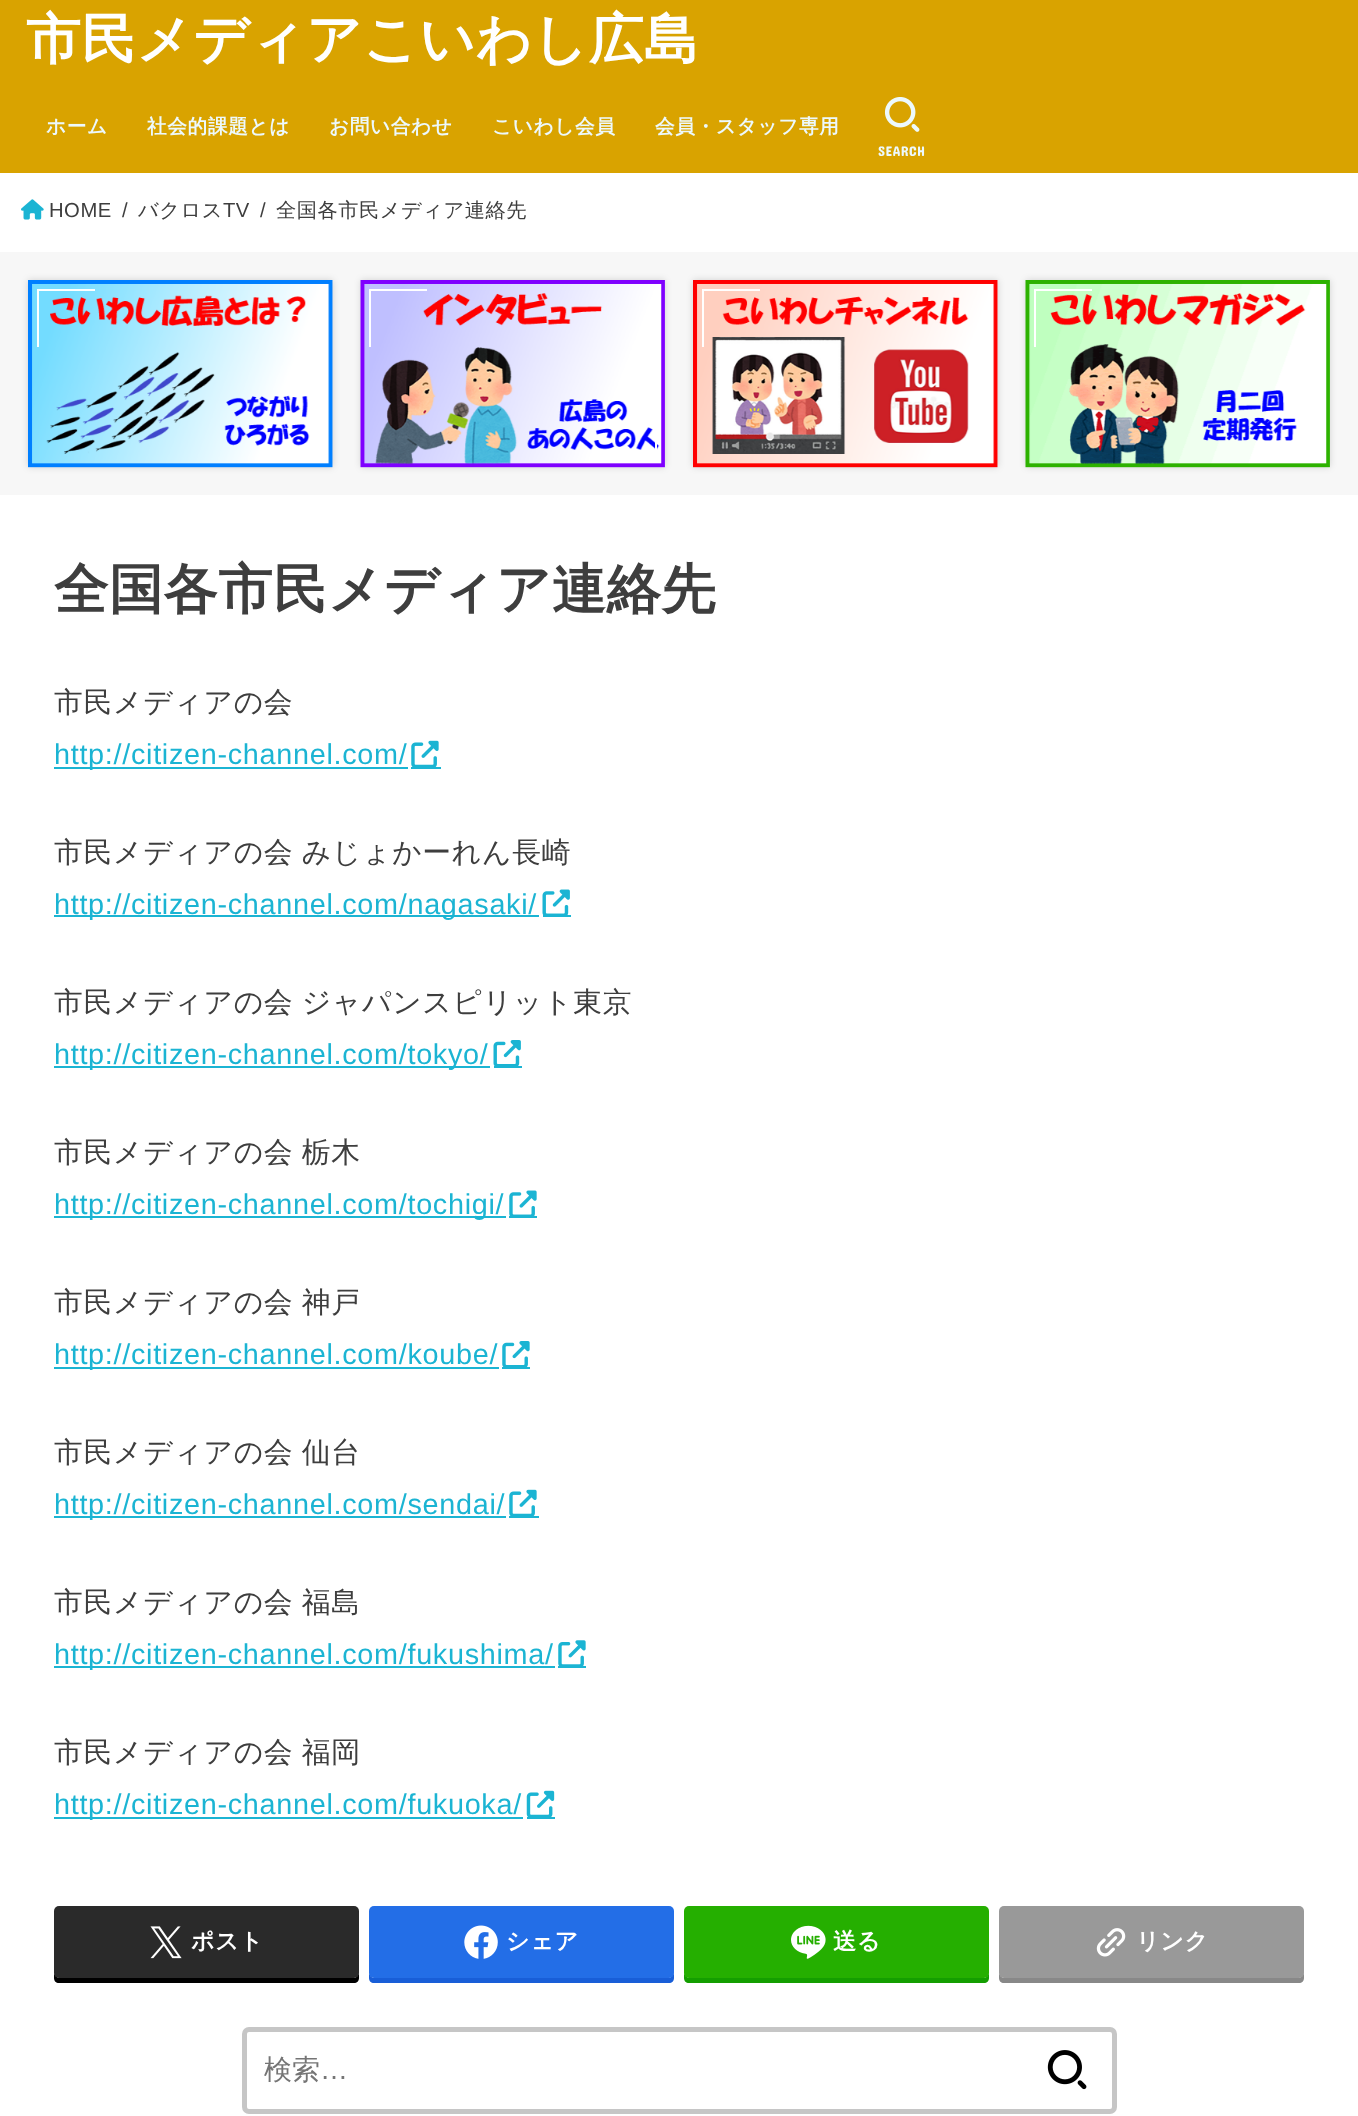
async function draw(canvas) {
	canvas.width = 1358;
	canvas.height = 2116;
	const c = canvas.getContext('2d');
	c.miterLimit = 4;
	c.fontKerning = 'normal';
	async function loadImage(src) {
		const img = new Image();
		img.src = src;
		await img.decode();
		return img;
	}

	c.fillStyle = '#f7f7f7';
	c.fillRect(0, 0, 1358, 2116);
	c.fillStyle = '#d9a300';
	c.fillRect(0, 0, 1358, 173);
	c.letterSpacing = '0.5px';
	c.font = 'bold 54.75px WenQuanYi Zen Hei';
	c.fillStyle = '#fff';
	c.fillText('市民メディアこいわし広島', 26, 58);
	c.letterSpacing = '0.7px';
	c.font = 'bold 19.6px WenQuanYi Zen Hei';
	c.fillStyle = '#edf9fc';
	for (const [text, x, y] of [
		['ホーム', 46, 133],
		['社会的課題とは', 147, 133],
		['お問い合わせ', 329, 133],
		['こいわし会員', 492, 133],
		['会員・スタッフ専用', 655, 133],
	]) {
		c.fillText(text, x, y);
	}
	c.drawImage(await loadImage('img1.png'), 884, 97, 36, 35);
	c.letterSpacing = '0.5px';
	c.font = '14px Concert One';
	c.fillText('SEARCH', 878, 156);
	c.fillStyle = '#fff';
	c.fillRect(0, 173, 1358, 79);
	c.drawImage(await loadImage('img2.png'), 21, 199, 23, 21);
	c.font = '20.25px Liberation Sans';
	c.fillStyle = '#3e3e3e';
	c.fillText('HOME', 49, 217);
	c.fillText('/', 122, 217);
	c.font = '500 20.25px WenQuanYi Zen Hei';
	c.fillText('バクロス', 138, 217);
	c.font = '20.25px Liberation Sans';
	c.fillText('TV', 223, 217);
	c.fillText('/', 260, 217);
	c.font = '500 20.25px WenQuanYi Zen Hei';
	c.fillText('全国各市民メディア連絡先', 276, 217);
	c.fillStyle = '#00000026';
	c.filter = 'blur(3.5px)';
	c.beginPath();
	c.rect(28, 280, 305, 187);
	c.fill();
	c.filter = 'none';
	c.drawImage(await loadImage('img3.png'), 28, 280, 305, 188);
	c.fillStyle = '#fff';
	c.fillRect(37, 289, 58, 2);
	c.fillRect(37, 289, 2, 58);
	c.fillStyle = '#00000026';
	c.filter = 'blur(3.5px)';
	c.beginPath();
	c.rect(361, 280, 304, 187);
	c.fill();
	c.filter = 'none';
	c.drawImage(await loadImage('img4.png'), 360, 280, 305, 188);
	for (const [x, y, w, h, color] of [
		[369, 289, 58, 2, '#fff'],
		[369, 289, 2, 58, '#fff'],
		[655, 441, 2, 9, '#fff'],
	]) {
		c.fillStyle = color;
		c.fillRect(x, y, w, h);
	}
	c.fillStyle = '#00000026';
	c.filter = 'blur(3.5px)';
	c.beginPath();
	c.rect(693, 280, 305, 187);
	c.fill();
	c.filter = 'none';
	c.drawImage(await loadImage('img5.png'), 693, 280, 305, 188);
	c.fillStyle = '#fff';
	c.fillRect(702, 289, 58, 2);
	c.fillRect(702, 289, 2, 58);
	c.fillStyle = '#00000026';
	c.filter = 'blur(3.5px)';
	c.beginPath();
	c.rect(1026, 280, 304, 187);
	c.fill();
	c.filter = 'none';
	c.drawImage(await loadImage('img6.png'), 1025, 280, 305, 188);
	for (const [x, y, w, h, color] of [
		[1034, 289, 58, 2, '#fff'],
		[1034, 289, 2, 58, '#fff'],
		[0, 495, 1358, 1621, '#fff'],
	]) {
		c.fillStyle = color;
		c.fillRect(x, y, w, h);
	}
	c.font = 'bold 54.25px WenQuanYi Zen Hei';
	c.fillStyle = '#3e3e3e';
	c.fillText('全国各市民メディア連絡先', 54, 608);
	c.letterSpacing = '0.7px';
	c.font = '500 28.8px WenQuanYi Zen Hei';
	c.fillText('市民メディアの会', 54, 712);
	c.fillStyle = '#1bb4d3';
	c.fillRect(54, 767, 354, 2);
	c.font = '28.8px Liberation Sans';
	c.fillText('http://citizen-channel.com/', 54, 764);
	c.fillRect(411, 767, 30, 2);
	c.drawImage(await loadImage('img7.png'), 411, 740, 28, 27);
	c.wordSpacing = '-1px';
	c.font = '500 28.8px WenQuanYi Zen Hei';
	c.fillStyle = '#3e3e3e';
	c.fillText('市民メディアの会 みじょかーれん長崎', 54, 862);
	c.fillStyle = '#1bb4d3';
	c.fillRect(54, 915, 485, 2);
	c.wordSpacing = '0px';
	c.font = '28.8px Liberation Sans';
	c.fillText('http://citizen-channel.com/nagasaki/', 54, 914);
	c.fillRect(543, 915, 28, 2);
	c.drawImage(await loadImage('img8.png'), 542, 889, 28, 26);
	c.wordSpacing = '-1px';
	c.font = '500 28.8px WenQuanYi Zen Hei';
	c.fillStyle = '#3e3e3e';
	c.fillText('市民メディアの会 ジャパンスピリット東京', 54, 1012);
	c.fillStyle = '#1bb4d3';
	c.fillRect(54, 1066, 436, 2);
	c.wordSpacing = '0px';
	c.font = '28.8px Liberation Sans';
	c.fillText('http://citizen-channel.com/tokyo/', 54, 1064);
	c.fillRect(494, 1066, 28, 2);
	c.drawImage(await loadImage('img9.png'), 493, 1040, 28, 26);
	c.wordSpacing = '-1px';
	c.font = '500 28.8px WenQuanYi Zen Hei';
	c.fillStyle = '#3e3e3e';
	c.fillText('市民メディアの会 栃木', 54, 1162);
	c.fillStyle = '#1bb4d3';
	c.fillRect(54, 1216, 452, 2);
	c.wordSpacing = '0px';
	c.font = '28.8px Liberation Sans';
	c.fillText('http://citizen-channel.com/tochigi/', 54, 1214);
	c.fillRect(509, 1216, 28, 2);
	c.drawImage(await loadImage('img10.png'), 509, 1190, 28, 26);
	c.wordSpacing = '-1px';
	c.font = '500 28.8px WenQuanYi Zen Hei';
	c.fillStyle = '#3e3e3e';
	c.fillText('市民メディアの会 神戸', 54, 1312);
	c.fillStyle = '#1bb4d3';
	c.fillRect(54, 1367, 445, 2);
	c.wordSpacing = '0px';
	c.font = '28.8px Liberation Sans';
	c.fillText('http://citizen-channel.com/koube/', 54, 1364);
	c.fillRect(502, 1367, 28, 2);
	c.drawImage(await loadImage('img11.png'), 502, 1341, 28, 26);
	c.wordSpacing = '-1px';
	c.font = '500 28.8px WenQuanYi Zen Hei';
	c.fillStyle = '#3e3e3e';
	c.fillText('市民メディアの会 仙台', 54, 1462);
	c.fillStyle = '#1bb4d3';
	c.fillRect(54, 1516, 452, 2);
	c.wordSpacing = '0px';
	c.font = '28.8px Liberation Sans';
	c.fillText('http://citizen-channel.com/sendai/', 54, 1514);
	c.fillRect(509, 1516, 30, 2);
	c.drawImage(await loadImage('img7.png'), 509, 1489, 28, 27);
	c.wordSpacing = '-1px';
	c.font = '500 28.8px WenQuanYi Zen Hei';
	c.fillStyle = '#3e3e3e';
	c.fillText('市民メディアの会 福島', 54, 1612);
	c.fillStyle = '#1bb4d3';
	c.fillRect(54, 1666, 501, 2);
	c.wordSpacing = '0px';
	c.font = '28.8px Liberation Sans';
	c.fillText('http://citizen-channel.com/fukushima/', 54, 1664);
	c.fillRect(558, 1666, 28, 2);
	c.drawImage(await loadImage('img12.png'), 558, 1640, 28, 26);
	c.wordSpacing = '-1px';
	c.font = '500 28.8px WenQuanYi Zen Hei';
	c.fillStyle = '#3e3e3e';
	c.fillText('市民メディアの会 福岡', 54, 1762);
	c.fillStyle = '#1bb4d3';
	c.fillRect(54, 1817, 469, 2);
	c.wordSpacing = '0px';
	c.font = '28.8px Liberation Sans';
	c.fillText('http://citizen-channel.com/fukuoka/', 54, 1814);
	c.fillRect(527, 1817, 28, 2);
	c.drawImage(await loadImage('img13.png'), 526, 1790, 29, 27);
	c.fillStyle = '#000';
	c.beginPath();
	c.moveTo(54, 1914);
	c.lineTo(54, 1978);
	c.bezierCurveTo(54, 1981, 56, 1983, 59, 1983);
	c.lineTo(354, 1983);
	c.bezierCurveTo(357, 1983, 359, 1981, 359, 1978);
	c.lineTo(359, 1914);
	c.lineTo(359, 1972);
	c.bezierCurveTo(359, 1975, 356, 1978, 354, 1978);
	c.lineTo(60, 1978);
	c.bezierCurveTo(57, 1978, 54, 1975, 54, 1972);
	c.closePath();
	c.fill();
	c.fillStyle = '#2a2a2a';
	c.beginPath();
	c.roundRect(54, 1906, 305, 72, 5);
	c.fill();
	c.drawImage(await loadImage('img14.png'), 150, 1926, 32, 33);
	c.font = 'bold 23px WenQuanYi Zen Hei';
	c.fillStyle = '#fff';
	c.fillText('ポスト', 191, 1949);
	c.fillStyle = '#185ed8';
	c.beginPath();
	c.moveTo(369, 1914);
	c.lineTo(369, 1978);
	c.bezierCurveTo(369, 1981, 371, 1983, 374, 1983);
	c.lineTo(669, 1983);
	c.bezierCurveTo(672, 1983, 674, 1981, 674, 1978);
	c.lineTo(674, 1914);
	c.lineTo(674, 1972);
	c.bezierCurveTo(674, 1975, 671, 1978, 668, 1978);
	c.lineTo(374, 1978);
	c.bezierCurveTo(372, 1978, 369, 1975, 369, 1972);
	c.closePath();
	c.fill();
	c.fillStyle = '#236ee7';
	c.beginPath();
	c.roundRect(369, 1906, 305, 72, 5);
	c.fill();
	c.drawImage(await loadImage('img15.png'), 464, 1925, 34, 34);
	c.fillStyle = '#fff';
	c.fillText('シェア', 506, 1949);
	c.fillStyle = '#149e00';
	c.beginPath();
	c.moveTo(684, 1914);
	c.lineTo(684, 1978);
	c.bezierCurveTo(684, 1981, 686, 1983, 689, 1983);
	c.lineTo(984, 1983);
	c.bezierCurveTo(987, 1983, 989, 1981, 989, 1978);
	c.lineTo(989, 1914);
	c.lineTo(989, 1972);
	c.bezierCurveTo(989, 1975, 986, 1978, 984, 1978);
	c.lineTo(690, 1978);
	c.bezierCurveTo(687, 1978, 684, 1975, 684, 1972);
	c.closePath();
	c.fill();
	c.fillStyle = '#25af00';
	c.beginPath();
	c.roundRect(684, 1906, 305, 72, 5);
	c.fill();
	c.drawImage(await loadImage('img16.png'), 791, 1925, 35, 34);
	c.fillStyle = '#fff';
	c.fillText('送る', 833, 1949);
	c.fillStyle = '#888';
	c.beginPath();
	c.moveTo(999, 1914);
	c.lineTo(999, 1978);
	c.bezierCurveTo(999, 1981, 1001, 1983, 1004, 1983);
	c.lineTo(1299, 1983);
	c.bezierCurveTo(1302, 1983, 1304, 1981, 1304, 1978);
	c.lineTo(1304, 1914);
	c.lineTo(1304, 1972);
	c.bezierCurveTo(1304, 1975, 1301, 1978, 1298, 1978);
	c.lineTo(1004, 1978);
	c.bezierCurveTo(1002, 1978, 999, 1975, 999, 1972);
	c.closePath();
	c.fill();
	c.fillStyle = '#999';
	c.beginPath();
	c.roundRect(999, 1906, 305, 72, 5);
	c.fill();
	c.drawImage(await loadImage('img17.png'), 1096, 1928, 30, 29);
	c.fillStyle = '#fff';
	c.fillText('リンク', 1136, 1949);
	c.beginPath();
	c.roundRect(244.5, 2029.5, 870, 82, 4.5);
	c.strokeStyle = '#c6c6c6';
	c.lineWidth = 5;
	c.stroke();
	c.letterSpacing = '0px';
	c.font = '500 28px WenQuanYi Zen Hei';
	c.fillStyle = '#757575';
	c.fillText('検索', 264, 2079);
	c.font = '28px Liberation Sans';
	c.fillText('…', 320, 2079);
	c.drawImage(await loadImage('img18.png'), 1047, 2050, 40, 40);
}

draw(document.querySelector('canvas'));
